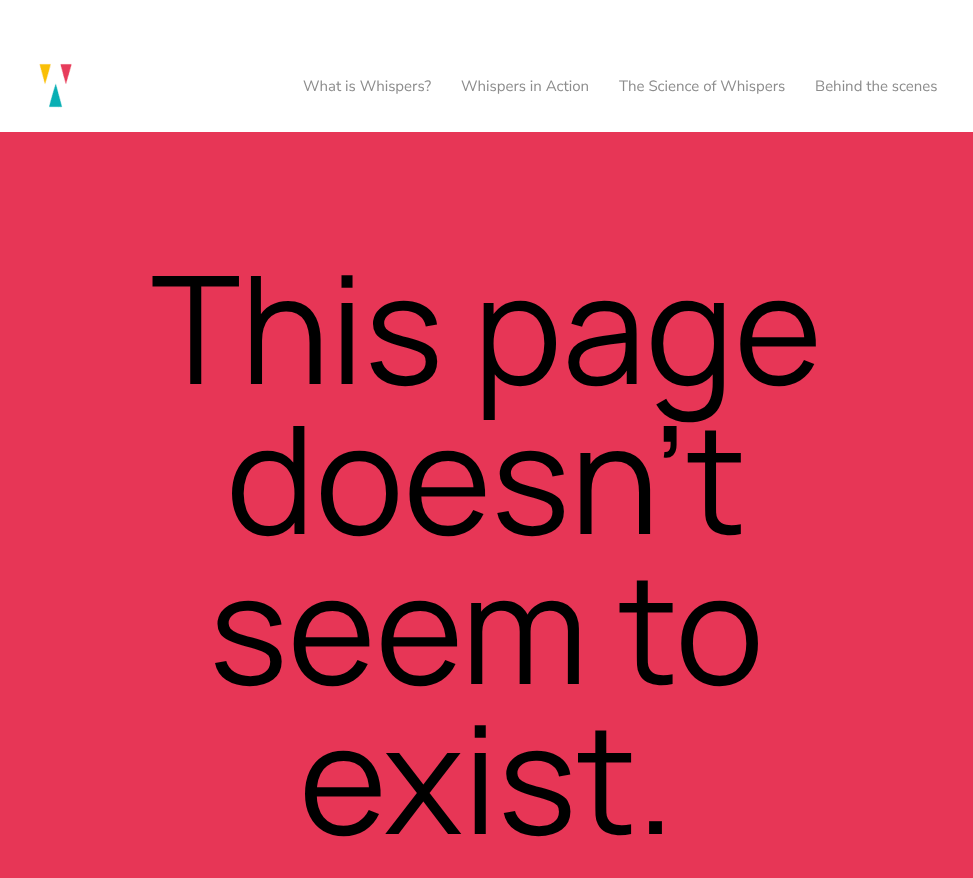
async function draw(canvas) {
	canvas.width = 973;
	canvas.height = 878;
	const c = canvas.getContext('2d');
	c.miterLimit = 4;
	c.fontKerning = 'normal';
	async function loadImage(src) {
		const img = new Image();
		img.src = src;
		await img.decode();
		return img;
	}

	c.fillStyle = '#fff';
	c.fillRect(0, 0, 973, 878);
	c.drawImage(await loadImage('img1.png'), 39, 63, 33, 45);
	c.font = '200 15px Nunito Sans';
	c.fillStyle = '#8c8c8c';
	for (const [text, x, y] of [
		['What is Whispers?', 303, 91],
		['Whispers in Action', 461, 91],
		['The Science of Whispers', 619, 91],
		['Behind the scenes', 815, 91],
	]) {
		c.fillText(text, x, y);
	}
	c.fillStyle = '#e73656';
	c.fillRect(0, 132, 973, 746);
	c.font = '150px Manrope';
	c.fillStyle = '#000';
	for (const [text, x, y] of [
		['This page', 151, 384],
		['doesn\'t', 226, 534],
		['seem to', 209, 684],
		['exist.', 299, 834],
	]) {
		c.fillText(text, x, y);
	}
}

draw(document.querySelector('canvas'));
